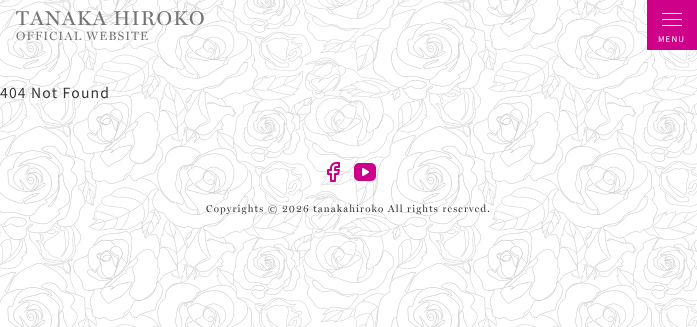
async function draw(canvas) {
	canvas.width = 697;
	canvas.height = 327;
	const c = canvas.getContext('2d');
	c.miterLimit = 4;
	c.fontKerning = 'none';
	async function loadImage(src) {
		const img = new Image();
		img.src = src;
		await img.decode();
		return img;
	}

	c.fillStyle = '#fff';
	c.fillRect(0, 0, 697, 327);
	c.drawImage(await loadImage('img1.png'), 0, 0, 697, 327);
	c.letterSpacing = '1.12px';
	c.font = '20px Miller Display';
	c.fillStyle = '#747474';
	c.fillText('TANAKA HIROKO', 16, 25);
	c.font = '12px Miller Display';
	c.fillText('OFFICIAL WEBSITE', 16, 40);
	for (const [x, y, w, h, color] of [
		[647, 0, 50, 50, '#ce0089'],
		[662, 19, 20, 1, '#fff'],
		[662, 13, 20, 1, '#fff'],
		[662, 25, 20, 1, '#fff'],
	]) {
		c.fillStyle = color;
		c.fillRect(x, y, w, h);
	}
	c.font = '8px Noto Sans JP';
	c.fillText('MENU', 658, 42);
	c.font = '14px Noto Sans JP';
	c.fillStyle = '#363636';
	c.fillText('404 Not Found', 0, 98);
	c.drawImage(await loadImage('img2.png'), 327, 162, 13, 20);
	c.drawImage(await loadImage('img3.png'), 354, 163, 22, 18);
	c.font = '10px Miller Display';
	c.fillText('Copyrights © 2026 tanakahiroko All rights reserved.', 206, 212);
}

draw(document.querySelector('canvas'));
